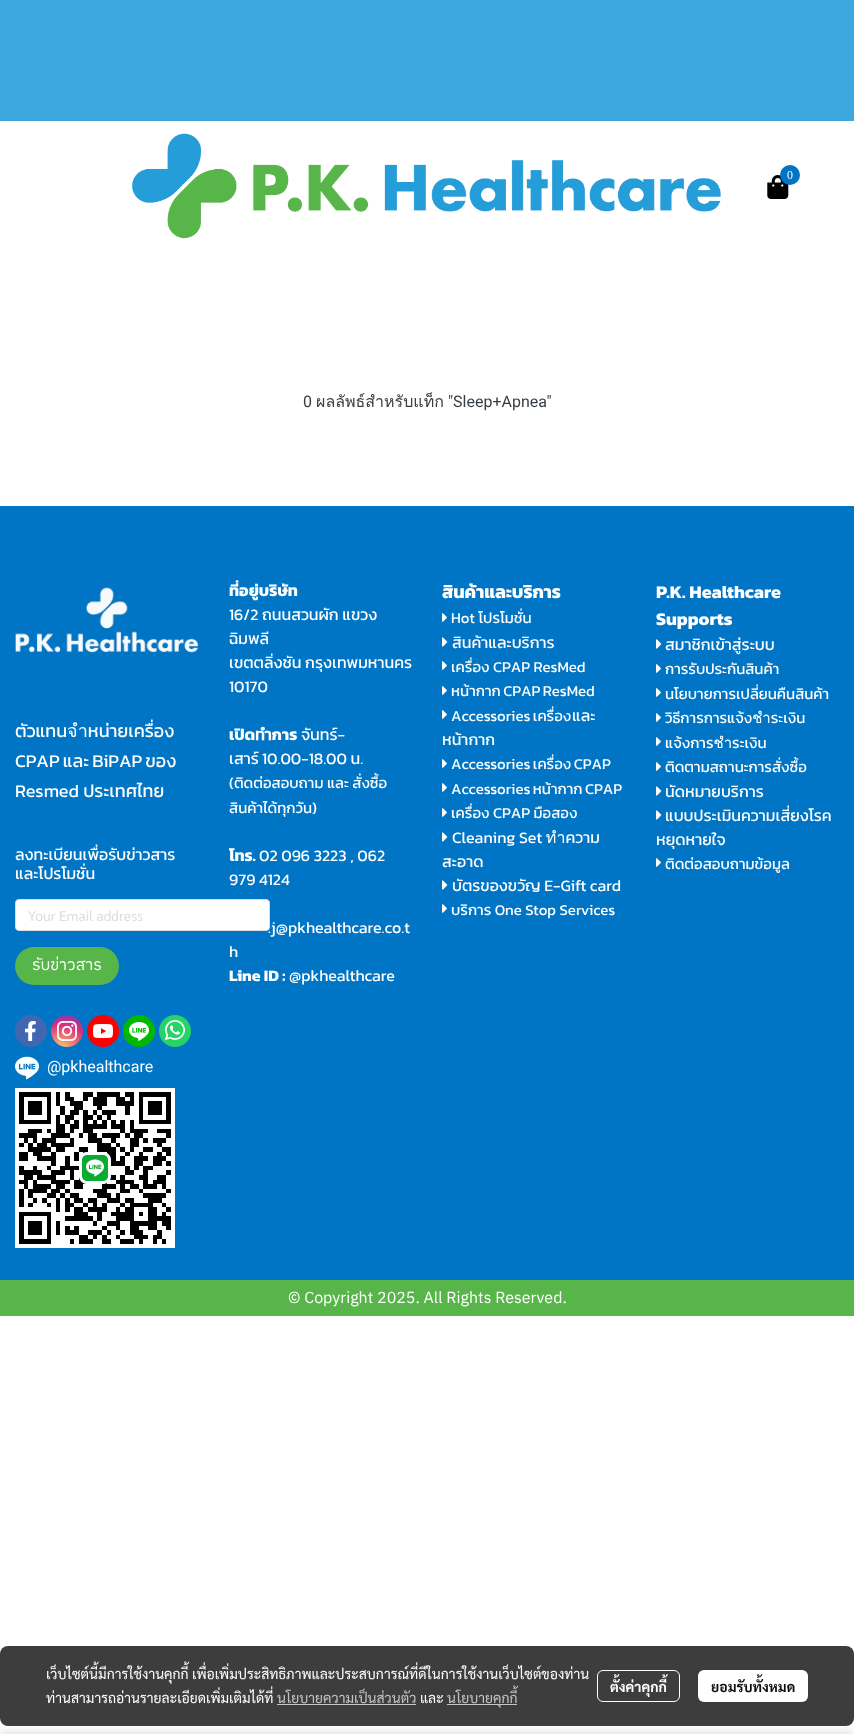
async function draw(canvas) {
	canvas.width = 854;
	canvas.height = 1734;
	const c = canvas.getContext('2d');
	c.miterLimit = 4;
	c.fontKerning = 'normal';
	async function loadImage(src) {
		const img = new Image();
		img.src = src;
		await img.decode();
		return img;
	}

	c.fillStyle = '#fff';
	c.fillRect(0, 0, 854, 1734);
	c.fillStyle = '#3ba7dc';
	c.fillRect(0, 0, 854, 121);
	c.drawImage(await loadImage('img1.png'), 131, 133, 590, 106);
	c.drawImage(await loadImage('img2.png'), 767, 175, 22, 24);
	c.fillStyle = '#0075c5';
	c.beginPath();
	c.arc(790, 175, 10, 0, 2 * Math.PI);
	c.fill();
	c.font = '12px Liberation Serif';
	c.fillStyle = '#fff';
	c.fillText('0', 787, 179);
	c.font = '16px Roboto';
	c.fillStyle = '#373e44';
	c.fillText('0', 303, 407);
	c.font = '16px Loma';
	c.fillText('ผลลัพธ์สำหรับแท็ก', 316, 407);
	c.font = '16px Roboto';
	c.fillText('"Sleep+Apnea"', 448, 407);
	c.fillStyle = '#0075c5';
	c.fillRect(0, 506, 854, 774);
	c.drawImage(await loadImage('img3.png'), 15, 587, 184, 66);
	c.save();
	c.beginPath();
	c.rect(15, 705, 184, 110);
	c.clip();
	c.font = '18px Kanit';
	c.fillStyle = '#fff';
	c.fillText('ตัวแทนจำหน่ายเครื่อง', 15, 737);
	c.restore();
	c.wordSpacing = '-1px';
	c.font = '18px Kanit';
	c.fillStyle = '#fff';
	c.fillText('CPAP และ BiPAP ของ', 15, 767);
	c.wordSpacing = '0px';
	c.fillText('Resmed ประเทศไทย', 15, 797);
	c.font = '16px Kanit';
	c.fillText('ลงทะเบียนเพื่อรับข่าวสาร', 15, 860);
	c.fillText('และโปรโมชั่น', 15, 879);
	c.beginPath();
	c.roundRect(15.5, 899.5, 254, 31, 3.5);
	c.fill();
	c.strokeStyle = '#ddd';
	c.stroke();
	c.font = '14px Sarabun';
	c.fillStyle = '#ddd';
	c.fillText('Your Email address', 28, 921);
	c.fillStyle = '#57b549';
	c.beginPath();
	c.roundRect(15, 947, 104, 38, 19);
	c.fill();
	c.font = '16px IBM Plex Sans Thai';
	c.fillStyle = '#fff';
	c.fillText('รับข่าวสาร', 32, 970);
	c.drawImage(await loadImage('img4.png'), 15, 1015, 32, 32);
	c.drawImage(await loadImage('img5.png'), 51, 1015, 32, 32);
	c.drawImage(await loadImage('img6.png'), 87, 1015, 32, 32);
	c.drawImage(await loadImage('img7.png'), 123, 1015, 32, 32);
	c.drawImage(await loadImage('img8.png'), 159, 1015, 32, 32);
	c.drawImage(await loadImage('img9.png'), 15, 1056, 24, 24);
	c.font = '16px Roboto';
	c.fillText('@pkhealthcare', 47, 1072);
	c.fillRect(15, 1088, 160, 160);
	c.drawImage(await loadImage('img10.png'), 19, 1092, 152, 152);
	c.drawImage(await loadImage('img11.png'), 79, 1152, 32, 32);
	c.save();
	c.beginPath();
	c.rect(229, 568, 183, 429);
	c.clip();
	c.font = 'bold 16px Kanit';
	c.fillText('ที่อยู่บริษัท', 229, 596);
	c.restore();
	c.font = '16px Kanit';
	c.fillText('16/2 ถนนสวนผัก แขวง', 229, 620);
	c.save();
	c.beginPath();
	c.rect(229, 568, 183, 429);
	c.clip();
	c.fillText('ฉิมพลี', 229, 644);
	c.restore();
	c.fillText('เขตตลิ่งชัน กรุงเทพมหานคร', 229, 668);
	c.fillText('10170', 229, 692);
	c.save();
	c.beginPath();
	c.rect(229, 568, 183, 429);
	c.clip();
	c.font = 'bold 16px Kanit';
	c.fillText('เปิดทำการ', 229, 740);
	c.restore();
	for (const [text, x, y] of [
		['จันทร์-', 301, 740],
		['เสาร์', 229, 764],
		['10.00-18.00 น.', 262, 764],
	]) {
		c.fillText(text, x, y);
	}
	c.save();
	c.beginPath();
	c.rect(229, 568, 183, 429);
	c.clip();
	c.font = '15px Kanit';
	c.fillText('(ติดต่อสอบถาม และ สั่งซื้อ', 229, 788);
	c.fillText('สินค้าได้ทุกวัน)', 229, 813);
	c.font = 'bold 16px Kanit';
	c.fillText('โทร.', 229, 861);
	c.restore();
	for (const [text, x, y] of [
		['02 096 3223 , 062', 259, 861],
		['979 4124', 229, 885],
		['.j@pkhealthcare.co.t', 268, 933],
		['h', 229, 957],
	]) {
		c.fillText(text, x, y);
	}
	c.font = 'bold 16px Kanit';
	c.fillText('Line ID :', 229, 981);
	c.font = '16px Kanit';
	c.fillText('@pkhealthcare', 289, 981);
	c.save();
	c.beginPath();
	c.rect(442, 568, 184, 363);
	c.clip();
	c.font = 'bold 18px Kanit';
	c.fillText('สินค้าและบริการ', 442, 598);
	c.restore();
	c.drawImage(await loadImage('img12.png'), 442, 613, 5, 9);
	c.font = '15px Kanit';
	c.fillText('Hot โปรโมชั่น', 451, 623);
	c.font = '16px Kanit';
	c.fillText('สินค้าและบริการ', 452, 648);
	c.drawImage(await loadImage('img13.png'), 442, 637, 6, 10);
	c.drawImage(await loadImage('img12.png'), 442, 661, 5, 9);
	c.font = '15px Kanit';
	c.fillText('เครื่อง CPAP ResMed', 451, 672);
	c.drawImage(await loadImage('img12.png'), 442, 686, 5, 9);
	c.wordSpacing = '-1px';
	c.fillText('หน้ากาก CPAP ResMed', 451, 696);
	c.drawImage(await loadImage('img12.png'), 442, 710, 5, 9);
	c.fillText('Accessories เครื่อง', 451, 721);
	c.wordSpacing = '0px';
	c.font = '16px Kanit';
	c.fillText('และ', 572, 721);
	c.fillText('หน้ากาก', 442, 745);
	c.drawImage(await loadImage('img12.png'), 442, 759, 5, 9);
	c.wordSpacing = '-1px';
	c.font = '15px Kanit';
	c.fillText('Accessories เครื่อง CPAP', 451, 769);
	c.drawImage(await loadImage('img12.png'), 442, 783, 5, 9);
	c.fillText('Accessories หน้ากาก CPAP', 451, 794);
	c.drawImage(await loadImage('img12.png'), 442, 808, 5, 9);
	c.wordSpacing = '0px';
	c.fillText('เครื่อง CPAP มือสอง', 451, 818);
	c.drawImage(await loadImage('img14.png'), 442, 832, 6, 10);
	c.font = '16px Kanit';
	for (const [text, x, y] of [
		['Cleaning Set ทำความ', 452, 843],
		['สะอาด', 442, 867],
		['บัตรของขวัญ E-Gift card', 452, 891],
	]) {
		c.fillText(text, x, y);
	}
	c.drawImage(await loadImage('img15.png'), 442, 880, 6, 10);
	c.drawImage(await loadImage('img12.png'), 442, 904, 5, 9);
	c.font = '15px Kanit';
	c.fillText('บริการ One Stop Services', 451, 915);
	c.font = 'bold 18px Kanit';
	c.fillText('P.K. Healthcare', 656, 598);
	c.fillText('Supports', 656, 625);
	c.drawImage(await loadImage('img14.png'), 656, 639, 6, 10);
	c.font = '16px Kanit';
	c.fillText('สมาชิกเข้าสู่ระบบ', 665, 650);
	c.drawImage(await loadImage('img12.png'), 656, 664, 5, 9);
	c.font = '15px Kanit';
	c.fillText('การรับประกันสินค้า', 665, 674);
	c.drawImage(await loadImage('img12.png'), 656, 688, 5, 9);
	c.fillText('นโยบายการเปลี่ยนคืนสินค้า', 665, 699);
	c.fillText('วิธีการการแจ้งชำระเงิน', 665, 723);
	c.drawImage(await loadImage('img16.png'), 656, 713, 5, 9);
	c.drawImage(await loadImage('img12.png'), 656, 737, 5, 9);
	c.fillText('แจ้งการชำระเงิน', 665, 748);
	c.fillText('ติดตามสถานะการสั่งซื้อ', 665, 772);
	c.drawImage(await loadImage('img16.png'), 656, 762, 5, 9);
	c.font = '16px Kanit';
	c.fillText('นัดหมายบริการ', 665, 797);
	c.drawImage(await loadImage('img17.png'), 656, 786, 6, 10);
	c.drawImage(await loadImage('img14.png'), 656, 810, 6, 10);
	c.fillText('แบบประเมินความเสี่ยงโรค', 665, 821);
	c.fillText('หยุดหายใจ', 656, 845);
	c.font = '15px Kanit';
	c.fillText('ติดต่อสอบถามข้อมูล', 665, 869);
	c.drawImage(await loadImage('img18.png'), 656, 858, 5, 9);
	c.fillStyle = '#57b549';
	c.fillRect(0, 1280, 854, 36);
	c.font = '16px IBM Plex Sans Thai';
	c.fillStyle = '#fff';
	c.fillText('© Copyright 2025. All Rights Reserved.', 288, 1303);
	c.fillStyle = '#00354a26';
	c.filter = 'blur(5px)';
	c.beginPath();
	c.rect(0, 1732, 854, 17);
	c.fill();
	c.filter = 'none';
	c.fillStyle = '#000000c2';
	c.beginPath();
	c.roundRect(0, 1646, 854, 80, 8);
	c.fill();
	c.font = '14px Sarabun';
	c.fillStyle = '#fff';
	c.fillText('เว็บไซต์นี้มีการใช้งานคุกกี้ เพื่อเพิ่มประสิทธิภาพและประสบการณ์ที่ดีในการใช้งานเว็บไซต์ของท่าน', 46, 1679);
	c.fillText('ท่านสามารถอ่านรายละเอียดเพิ่มเติมได้ที่', 46, 1703);
	c.fillStyle = '#c5c5c5';
	c.fillText('นโยบายความเป็นส่วนตัว', 277, 1703);
	c.fillStyle = '#fff';
	c.fillText('และ', 420, 1703);
	c.fillStyle = '#c5c5c5';
	c.fillRect(277, 1704, 139, 1);
	c.fillRect(447, 1704, 70, 1);
	c.fillText('นโยบายคุกกี้', 447, 1703);
	c.beginPath();
	c.roundRect(597.5, 1670.5, 82, 31, 5.5);
	c.strokeStyle = '#fff';
	c.stroke();
	c.font = 'bold 14px Sarabun';
	c.fillStyle = '#fff';
	c.fillText('ตั้งค่าคุกกี้', 610, 1692);
	c.beginPath();
	c.roundRect(698, 1670, 110, 32, 6);
	c.fill();
	c.fillStyle = '#0d0d0d';
	c.fillText('ยอมรับทั้งหมด', 711, 1692);
}

draw(document.querySelector('canvas'));
